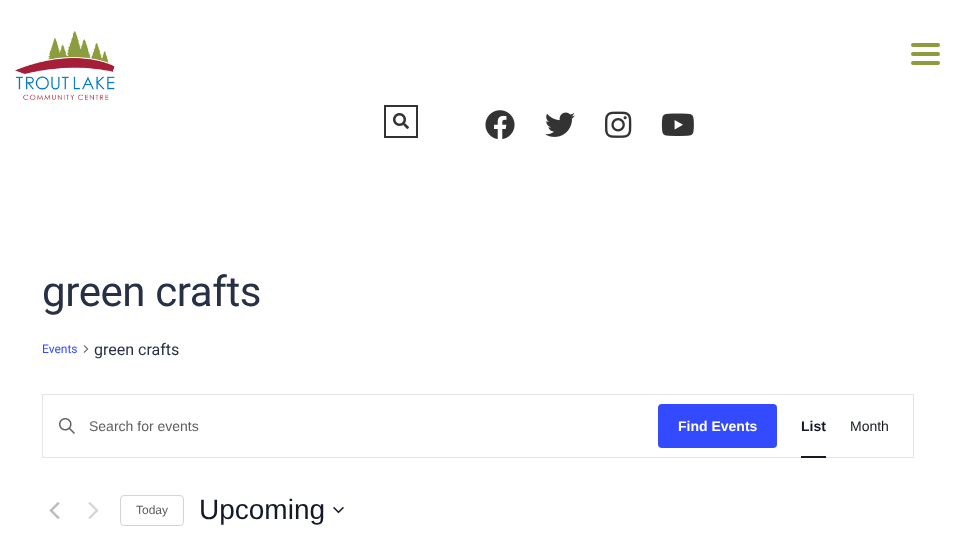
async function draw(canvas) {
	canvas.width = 956;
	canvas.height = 550;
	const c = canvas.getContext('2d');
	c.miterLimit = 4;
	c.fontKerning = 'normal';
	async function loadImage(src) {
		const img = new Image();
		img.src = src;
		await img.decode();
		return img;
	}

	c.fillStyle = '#fff';
	c.fillRect(0, 0, 956, 550);
	c.drawImage(await loadImage('img1.png'), 15, 31, 100, 69);
	c.fillStyle = '#8b9d3c';
	c.beginPath();
	c.roundRect(911, 43, 29, 4, 2);
	c.fill();
	c.beginPath();
	c.roundRect(911, 52, 29, 4, 2);
	c.fill();
	c.beginPath();
	c.roundRect(911, 61, 29, 4, 2);
	c.fill();
	c.strokeStyle = '#333';
	c.lineWidth = 2;
	c.strokeRect(385, 106, 32, 31);
	c.drawImage(await loadImage('img2.png'), 393, 113, 16, 16);
	c.drawImage(await loadImage('img3.png'), 485, 110, 30, 30);
	c.drawImage(await loadImage('img4.png'), 545, 112, 30, 25);
	c.drawImage(await loadImage('img5.png'), 605, 111, 27, 27);
	c.drawImage(await loadImage('img6.png'), 661, 113, 33, 23);
	c.letterSpacing = '-0.4px';
	c.font = '42px Roboto';
	c.fillStyle = '#273044';
	c.fillText('green crafts', 42, 306);
	c.letterSpacing = '0px';
	c.font = '12px Roboto';
	c.fillStyle = '#334aff';
	c.fillText('Events', 42, 353);
	c.drawImage(await loadImage('img7.png'), 83, 345, 6, 8);
	c.font = '16px Roboto';
	c.fillStyle = '#273044';
	c.fillText('green crafts', 94, 355);
	c.strokeStyle = '#e4e4e4';
	c.lineWidth = 1;
	c.strokeRect(42.5, 394.5, 871, 63);
	c.drawImage(await loadImage('img8.png'), 59, 418, 16, 16);
	c.font = '14px Liberation Sans';
	c.fillStyle = '#5d5d5d';
	c.fillText('Search for events', 89, 431);
	c.fillStyle = '#334aff';
	c.beginPath();
	c.roundRect(658, 404, 119, 44, 4);
	c.fill();
	c.font = 'bold 14px Liberation Sans';
	c.fillStyle = '#fff';
	c.fillText('Find Events', 678, 431);
	c.fillStyle = '#141827';
	c.fillText('List', 801, 431);
	c.fillRect(801, 456, 25, 2);
	c.font = '14px Liberation Sans';
	c.fillText('Month', 850, 431);
	c.drawImage(await loadImage('img9.png'), 49, 502, 11, 17);
	c.drawImage(await loadImage('img10.png'), 88, 502, 11, 17);
	c.beginPath();
	c.roundRect(120.5, 495.5, 63, 30, 3.5);
	c.strokeStyle = '#d5d5d5';
	c.stroke();
	c.font = '12px Liberation Sans';
	c.fillStyle = '#5d5d5d';
	c.fillText('Today', 136, 514);
	c.font = '28px Liberation Sans';
	c.fillStyle = '#141827';
	c.fillText('Upcoming', 199, 519);
	c.drawImage(await loadImage('img11.png'), 333, 506, 11, 8);
}

draw(document.querySelector('canvas'));
